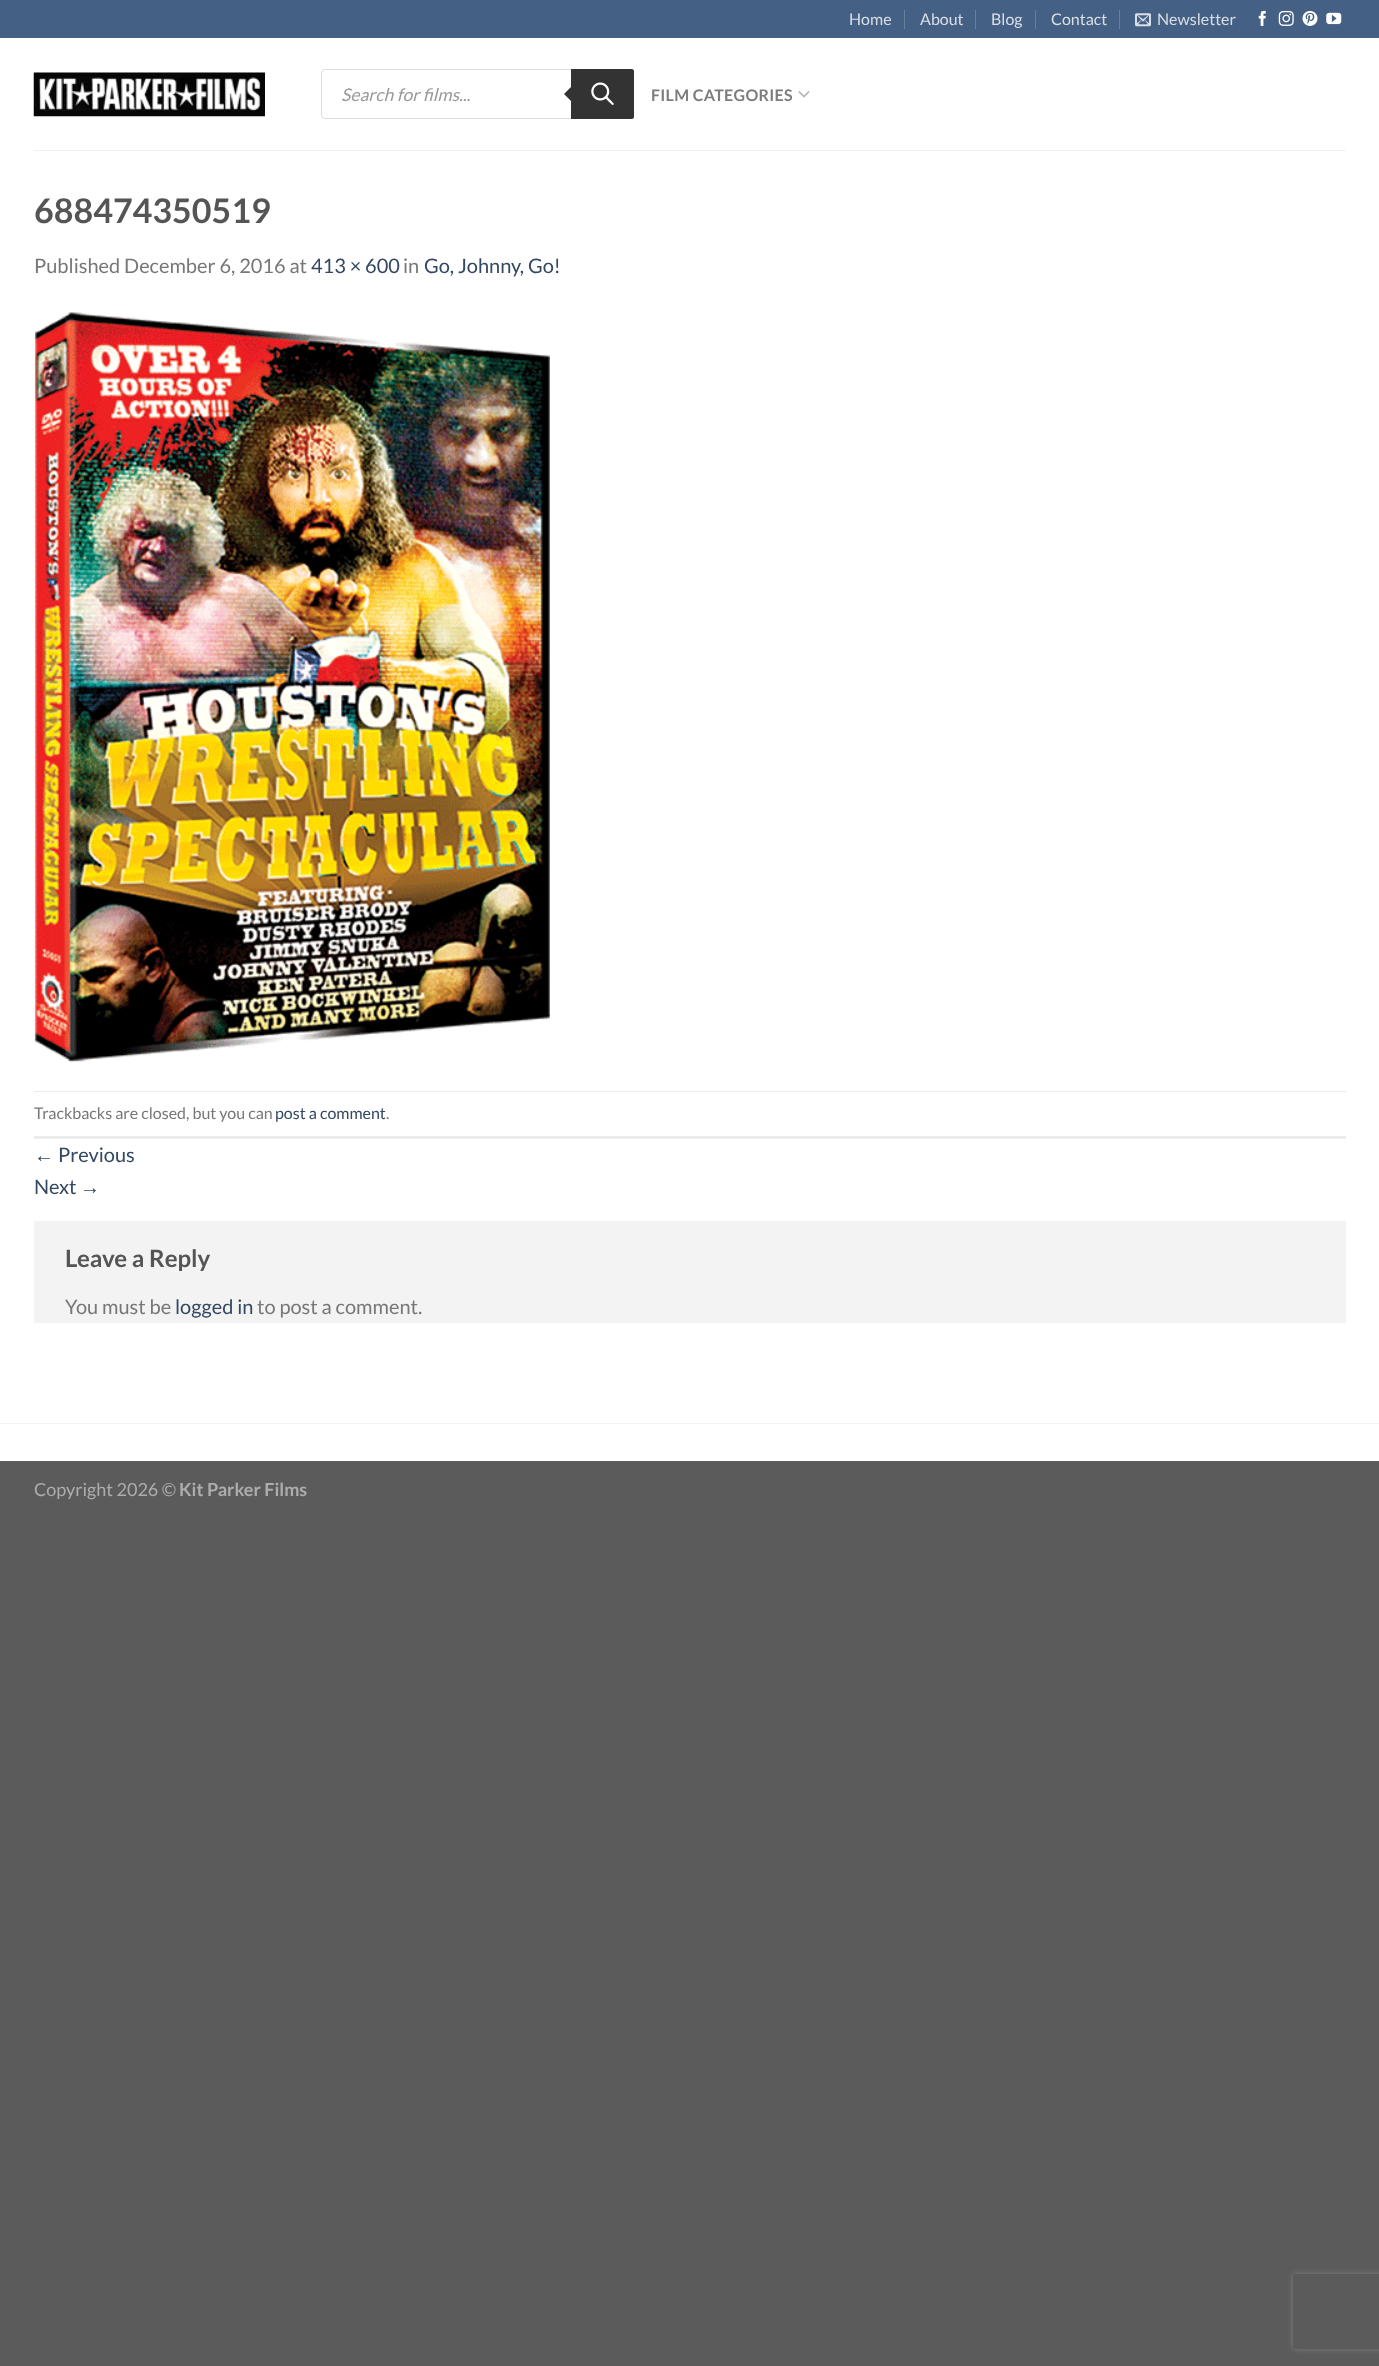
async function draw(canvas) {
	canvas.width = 1379;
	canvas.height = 2366;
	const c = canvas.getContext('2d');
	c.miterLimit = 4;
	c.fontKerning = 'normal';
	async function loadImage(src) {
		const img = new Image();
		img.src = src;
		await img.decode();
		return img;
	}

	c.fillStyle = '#5b5b5b';
	c.fillRect(0, 0, 1379, 2366);
	c.fillStyle = '#fff';
	c.fillRect(0, 38, 1379, 1423);
	c.fillStyle = '#446084';
	c.fillRect(0, 0, 1379, 38);
	c.font = '16px Lato';
	c.fillStyle = '#dadfe6';
	c.fillText('Home', 849, 25);
	c.fillStyle = '#69809d';
	c.fillRect(904, 10, 1, 19);
	c.fillStyle = '#dadfe6';
	c.fillText('About', 920, 25);
	c.fillStyle = '#69809d';
	c.fillRect(975, 10, 1, 19);
	c.fillStyle = '#dadfe6';
	c.fillText('Blog', 991, 25);
	c.fillStyle = '#69809d';
	c.fillRect(1035, 10, 1, 19);
	c.fillStyle = '#dadfe6';
	c.fillText('Contact', 1051, 25);
	c.fillStyle = '#69809d';
	c.fillRect(1119, 10, 1, 19);
	c.drawImage(await loadImage('img1.png'), 1135, 13, 16, 14);
	c.fillStyle = '#dadfe6';
	c.fillText('Newsletter', 1157, 25);
	c.drawImage(await loadImage('img2.png'), 1258, 10, 8, 16);
	c.drawImage(await loadImage('img3.png'), 1278, 10, 16, 16);
	c.drawImage(await loadImage('img4.png'), 1302, 11, 16, 15);
	c.drawImage(await loadImage('img5.png'), 1326, 12, 16, 13);
	c.drawImage(await loadImage('img6.png'), 33, 72, 232, 45);
	c.beginPath();
	c.roundRect(321.5, 69.5, 312, 49, 3.5);
	c.strokeStyle = '#ddd';
	c.stroke();
	c.font = 'italic 17.5px Lato';
	c.fillStyle = '#999';
	c.fillText('Search for films...', 341, 101);
	c.fillStyle = '#333';
	c.beginPath();
	c.roundRect(571, 69, 63, 50, [0, 2.5, 2.5, 0]);
	c.fill();
	c.beginPath();
	c.moveTo(574, 84);
	c.lineTo(574, 104);
	c.lineTo(564, 94);
	c.closePath();
	c.fill();
	c.drawImage(await loadImage('img7.png'), 591, 82, 23, 23);
	c.letterSpacing = '0.3px';
	c.font = 'bold 16px Lato';
	c.fillStyle = '#7d7d7d';
	c.fillText('FILM CATEGORIES', 651, 101);
	c.drawImage(await loadImage('img8.png'), 798, 91, 12, 7);
	c.fillStyle = '#f1f1f1';
	c.fillRect(34, 150, 1312, 1);
	c.letterSpacing = '0px';
	c.font = 'bold 34px Lato';
	c.fillStyle = '#555';
	c.fillText('688474350519', 34, 223);
	c.font = '20px Lato';
	c.fillStyle = '#777';
	c.fillText('Published December 6, 2016 at', 34, 273);
	c.fillStyle = '#334862';
	c.fillText('413 × 600', 311, 273);
	c.fillStyle = '#777';
	c.fillText('in', 403, 273);
	c.fillStyle = '#334862';
	c.fillText('Go, Johnny, Go!', 424, 273);
	c.drawImage(await loadImage('img9.png'), 34, 312, 516, 750);
	c.fillStyle = '#ececec';
	c.fillRect(34, 1091, 1312, 1);
	c.fillRect(34, 1136, 1312, 3);
	c.font = '16px Lato';
	c.fillStyle = '#777';
	c.fillText('Trackbacks are closed, but you can', 34, 1119);
	c.fillStyle = '#334862';
	c.fillText('post a comment', 275, 1119);
	c.fillStyle = '#777';
	c.fillText('.', 386, 1119);
	c.font = '20px Liberation Sans';
	c.fillStyle = '#334862';
	c.fillText('←', 34, 1162);
	c.font = '20px Lato';
	c.fillText('Previous', 58, 1162);
	c.fillText('Next', 34, 1194);
	c.font = '20px Liberation Sans';
	c.fillText('→', 80, 1194);
	c.fillStyle = '#f3f3f3';
	c.fillRect(34, 1221, 1312, 102);
	c.font = 'bold 24px Lato';
	c.fillStyle = '#555';
	c.fillText('Leave a Reply', 65, 1267);
	c.font = '20px Lato';
	c.fillStyle = '#777';
	c.fillText('You must be', 65, 1314);
	c.fillStyle = '#334862';
	c.fillText('logged in', 175, 1314);
	c.fillStyle = '#777';
	c.fillText('to post a comment.', 257, 1314);
	c.fillStyle = '#f2f2f2';
	c.fillRect(0, 1423, 1379, 1);
	c.font = '18px Lato';
	c.fillStyle = '#adadad';
	c.fillText('Copyright 2026 ©', 34, 1496);
	c.font = 'bold 18px Lato';
	c.fillText('Kit Parker Films', 179, 1496);
	c.save();
	c.beginPath();
	c.moveTo(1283, 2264);
	c.lineTo(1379, 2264);
	c.lineTo(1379, 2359);
	c.lineTo(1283, 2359);
	c.closePath();
	c.moveTo(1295.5, 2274);
	c.lineTo(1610.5, 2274);
	c.bezierCurveTo(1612, 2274, 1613, 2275, 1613, 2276.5);
	c.lineTo(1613, 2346.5);
	c.bezierCurveTo(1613, 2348, 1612, 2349, 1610.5, 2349);
	c.lineTo(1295.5, 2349);
	c.bezierCurveTo(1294, 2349, 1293, 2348, 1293, 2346.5);
	c.lineTo(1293, 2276.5);
	c.bezierCurveTo(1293, 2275, 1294, 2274, 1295.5, 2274);
	c.closePath();
	c.clip('evenodd');
	c.fillStyle = '#808080';
	c.filter = 'blur(3px)';
	c.beginPath();
	c.roundRect(1293, 2274, 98, 75, 2.5);
	c.fill();
	c.filter = 'none';
	c.restore();
}

draw(document.querySelector('canvas'));
